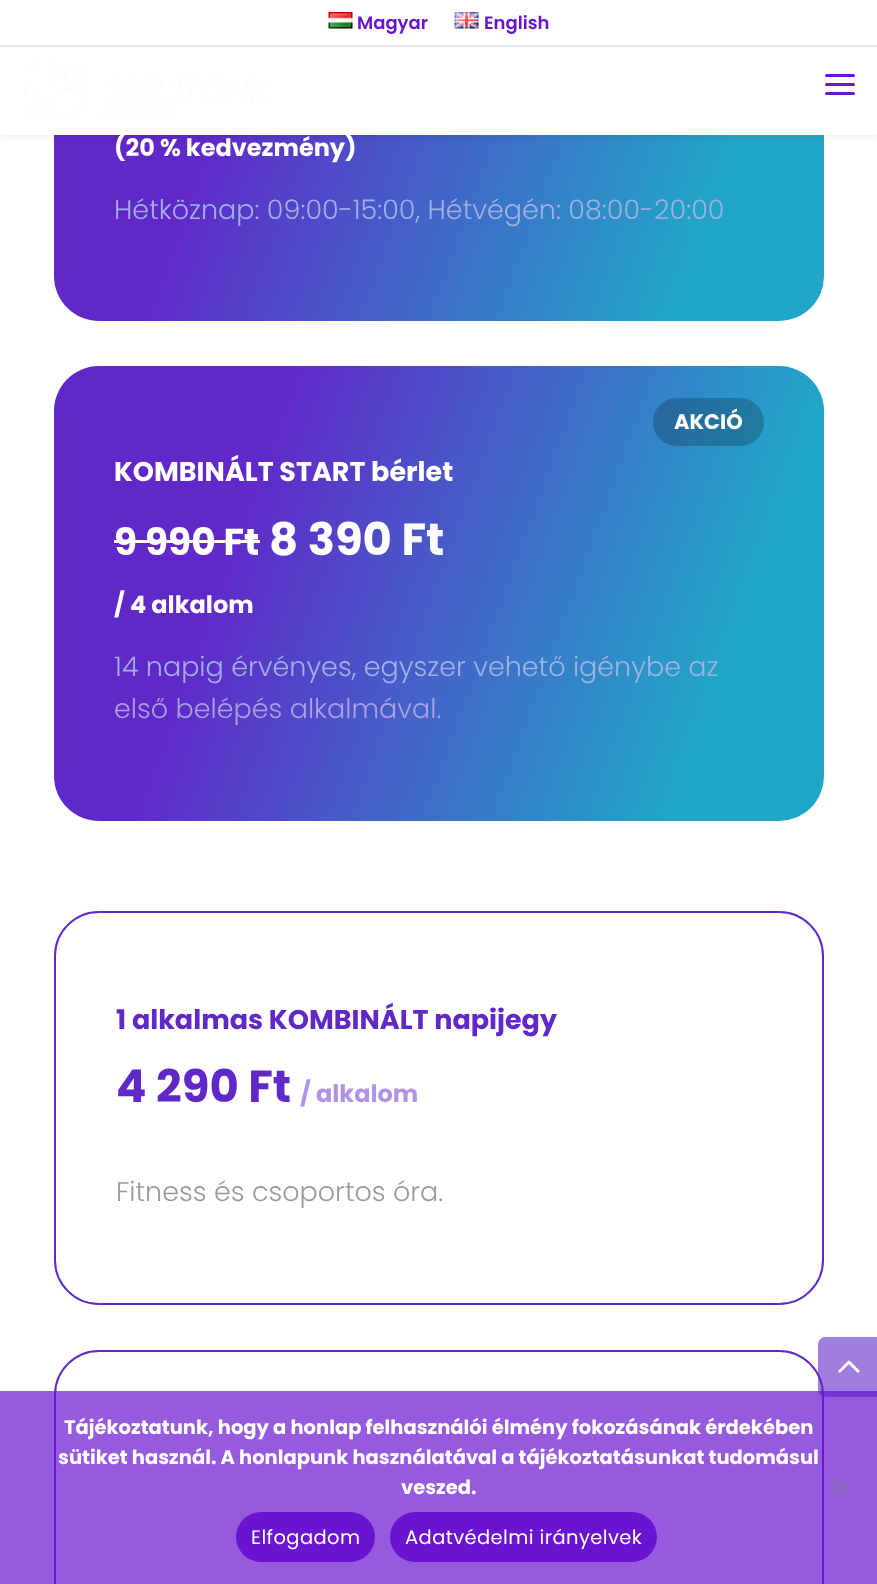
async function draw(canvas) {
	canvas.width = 877;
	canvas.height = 1584;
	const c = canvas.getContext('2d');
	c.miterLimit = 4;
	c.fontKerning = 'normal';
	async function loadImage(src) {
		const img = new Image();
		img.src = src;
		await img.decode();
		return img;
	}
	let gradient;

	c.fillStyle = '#fff';
	c.fillRect(0, 0, 877, 1584);
	gradient = c.createLinearGradient(33, -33, 845, 263);
	gradient.addColorStop(0.25, '#6128c9');
	gradient.addColorStop(0.83, '#21a6c8');
	c.fillStyle = gradient;
	c.beginPath();
	c.roundRect(54, -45, 770, 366, 45);
	c.fill();
	c.fillStyle = '#0000001a';
	c.filter = 'blur(5px)';
	c.beginPath();
	c.rect(0, 45, 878, 90);
	c.fill();
	c.filter = 'none';
	c.fillStyle = '#fff';
	c.fillRect(0, 0, 877, 45);
	c.fillStyle = '#e6e6e6';
	c.fillRect(0, 45, 877, 2);
	c.drawImage(await loadImage('img1.png'), 328, 12, 25, 17);
	c.font = '600 18px Poppins';
	c.fillStyle = '#6a14d1';
	c.fillText('Magyar', 357, 29);
	c.drawImage(await loadImage('img2.png'), 454, 12, 25, 17);
	c.fillText('English', 484, 29);
	c.fillStyle = '#fff';
	c.fillRect(0, 47, 877, 88);
	c.drawImage(await loadImage('img3.png'), 24, 62, 245, 59);
	c.fillStyle = '#6a19d1';
	c.beginPath();
	c.roundRect(825, 83, 30, 3, 1.5);
	c.fill();
	c.beginPath();
	c.roundRect(825, 74, 30, 3, 1.5);
	c.fill();
	c.beginPath();
	c.roundRect(825, 92, 30, 3, 1.5);
	c.fill();
	c.font = 'bold 24px Poppins';
	c.fillStyle = '#fff';
	c.fillText('(20 % kedvezmény)', 114, 156);
	c.font = '300 27px Poppins';
	c.fillStyle = '#a1b1e4';
	c.fillText('Hétköznap: 09:00-15:00, Hétvégén: 08:00-20:00', 114, 219);
	gradient = c.createLinearGradient(26, 443, 852, 743);
	gradient.addColorStop(0.25, '#6128c9');
	gradient.addColorStop(0.83, '#21a6c8');
	c.fillStyle = gradient;
	c.beginPath();
	c.roundRect(54, 366, 770, 455, 45);
	c.fill();
	c.fillStyle = '#00000033';
	c.beginPath();
	c.roundRect(653, 398, 111, 48, 24);
	c.fill();
	c.font = 'bold 21px Poppins';
	c.fillStyle = '#fff';
	c.fillText('AKCIÓ', 674, 429);
	c.font = 'bold 27px Poppins';
	c.fillText('KOMBINÁLT START bérlet', 114, 481);
	c.font = 'bold 37.5px Poppins';
	c.fillText('9 990 Ft', 114, 555);
	c.fillRect(114, 540, 146, 3);
	c.font = 'bold 45px Poppins';
	c.fillText('8 390 Ft', 269, 555);
	c.font = 'bold 24px Poppins';
	c.fillText('/ 4 alkalom', 114, 613);
	c.font = '300 27px Poppins';
	c.fillStyle = '#a1b1e4';
	c.fillText('14 napig érvényes, egyszer vehető igénybe az', 114, 676);
	c.fillStyle = '#a9a1e4';
	c.fillText('első belépés alkalmával.', 114, 718);
	c.beginPath();
	c.roundRect(55, 912, 768, 392, 44);
	c.strokeStyle = '#6128c9';
	c.lineWidth = 2;
	c.stroke();
	c.font = 'bold 27px Poppins';
	c.fillStyle = '#6128c9';
	c.fillText('1 alkalmas KOMBINÁLT napijegy', 116, 1029);
	c.font = 'bold 45px Poppins';
	c.fillText('4 290 Ft', 116, 1102);
	c.font = 'bold 24px Poppins';
	c.fillStyle = '#b094e4';
	c.fillText('/ alkalom', 300, 1102);
	c.font = '300 27px Poppins';
	c.fillStyle = '#999';
	c.fillText('Fitness és csoportos óra.', 116, 1201);
	c.beginPath();
	c.roundRect(55, 1351, 768, 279, 44);
	c.stroke();
	c.fillStyle = '#6128c999';
	c.beginPath();
	c.moveTo(826, 1337);
	c.lineTo(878, 1337);
	c.lineTo(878, 1397);
	c.lineTo(826, 1397);
	c.bezierCurveTo(821.5, 1397, 818, 1393.5, 818, 1389);
	c.lineTo(818, 1345);
	c.bezierCurveTo(818, 1340.5, 821.5, 1337, 826, 1337);
	c.closePath();
	c.fill();
	c.drawImage(await loadImage('img4.png'), 838, 1360, 22, 13);
	c.fillStyle = '#6a14d1b3';
	c.fillRect(0, 1391, 877, 193);
	c.font = 'bold 19.5px Poppins';
	c.fillStyle = '#fff';
	for (const [text, x, y] of [
		['Tájékoztatunk, hogy a honlap felhasználói élmény fokozásának érdekében', 64, 1434],
		['sütiket használ. A honlapunk használatával a tájékoztatásunkat tudomásul', 58, 1464],
		['veszed.', 401, 1494],
	]) {
		c.fillText(text, x, y);
	}
	c.fillStyle = '#8b6daf';
	c.beginPath();
	c.moveTo(848.5, 1479);
	c.lineTo(850.5, 1481);
	c.lineTo(834.5, 1497);
	c.lineTo(832.5, 1495);
	c.closePath();
	c.fill();
	c.beginPath();
	c.moveTo(832.5, 1481);
	c.lineTo(834.5, 1479);
	c.lineTo(850.5, 1495);
	c.lineTo(848.5, 1497);
	c.closePath();
	c.fill();
	c.fillStyle = '#6a14d1';
	c.beginPath();
	c.roundRect(236, 1512, 139, 50, 25);
	c.fill();
	c.letterSpacing = '0.4px';
	c.font = '19.5px Poppins';
	c.fillStyle = '#fff';
	c.fillText('Elfogadom', 251, 1544);
	c.fillStyle = '#6a14d1';
	c.beginPath();
	c.roundRect(390, 1512, 267, 50, 25);
	c.fill();
	c.fillStyle = '#fff';
	c.fillText('Adatvédelmi irányelvek', 405, 1544);
}

draw(document.querySelector('canvas'));
